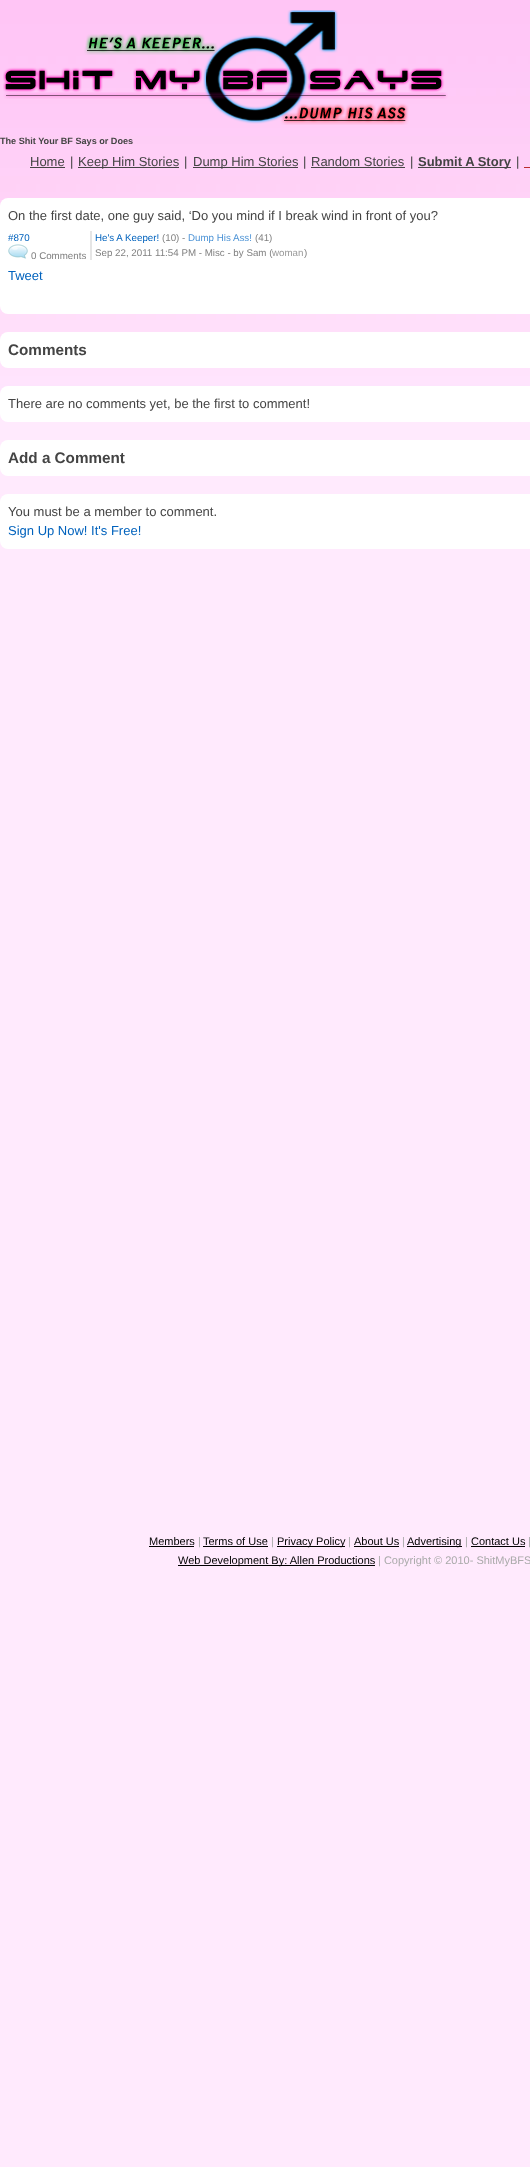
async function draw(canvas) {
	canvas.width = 530;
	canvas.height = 2167;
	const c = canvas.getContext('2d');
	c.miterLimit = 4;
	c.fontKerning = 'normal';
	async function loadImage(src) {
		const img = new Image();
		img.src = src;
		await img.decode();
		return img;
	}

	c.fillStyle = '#ffeafd';
	c.fillRect(0, 0, 530, 2167);
	c.drawImage(await loadImage('img1.png'), 0, 0, 530, 394);
	c.drawImage(await loadImage('img2.png'), 3, 10, 445, 115);
	c.font = 'bold 9.1px Liberation Sans';
	c.fillStyle = '#444';
	c.fillText('The Shit Your BF Says or Does', 0, 144);
	c.font = '13px Liberation Sans';
	c.fillText('Home', 30, 166);
	c.fillRect(30, 167, 35, 1);
	c.fillText('|', 70, 166);
	c.fillRect(78, 167, 101, 1);
	c.fillText('Keep Him Stories', 78, 166);
	c.fillText('|', 184, 166);
	c.fillRect(193, 167, 105, 1);
	for (const [text, x, y] of [
		['Dump Him Stories', 193, 166],
		['|', 303, 166],
		['Random Stories', 311, 166],
	]) {
		c.fillText(text, x, y);
	}
	c.fillRect(311, 167, 94, 1);
	c.fillText('|', 410, 166);
	c.fillRect(418, 167, 93, 1);
	c.font = 'bold 13px Liberation Sans';
	c.fillText('Submit A Story', 418, 166);
	c.font = '13px Liberation Sans';
	c.fillText('|', 516, 166);
	c.fillStyle = '#ba2c2c';
	c.fillRect(524, 167, 6, 1);
	c.fillStyle = '#fff';
	c.beginPath();
	c.roundRect(0, 198, 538, 116, 8);
	c.fill();
	c.fillStyle = '#444';
	c.fillText('On the first date, one guy said, ‘Do you mind if I break wind in front of you?', 8, 220);
	c.font = '9.75px Liberation Sans';
	c.fillStyle = '#0062bd';
	c.fillText('#870', 8, 241);
	c.drawImage(await loadImage('img3.png'), 8, 244, 20, 15);
	c.fillStyle = '#808080';
	c.fillText('0 Comments', 31, 259);
	c.fillStyle = '#e5e5e5';
	c.fillRect(90, 231, 2, 29);
	c.fillStyle = '#0062bd';
	c.fillText('He\'s A Keeper!', 95, 241);
	c.fillStyle = '#808080';
	c.fillText('(10) -', 162, 241);
	c.fillStyle = '#4c93d6';
	c.fillText('Dump His Ass!', 188, 241);
	c.fillStyle = '#808080';
	c.fillText('(41)', 255, 241);
	c.fillText('Sep 22, 2011 11:54 PM - Misc - by Sam (', 95, 256);
	c.fillStyle = '#999';
	c.fillText('woman', 272, 256);
	c.fillStyle = '#808080';
	c.fillText(')', 304, 256);
	c.font = '13px Liberation Sans';
	c.fillStyle = '#0062bd';
	c.fillText('Tweet', 8, 280);
	c.fillStyle = '#fff';
	c.beginPath();
	c.roundRect(0, 332, 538, 36, 8);
	c.fill();
	c.font = 'bold 15.25px Liberation Sans';
	c.fillStyle = '#444';
	c.fillText('Comments', 8, 355);
	c.fillStyle = '#fff';
	c.beginPath();
	c.roundRect(0, 386, 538, 36, 8);
	c.fill();
	c.font = '13px Liberation Sans';
	c.fillStyle = '#444';
	c.fillText('There are no comments yet, be the first to comment!', 8, 408);
	c.fillStyle = '#fff';
	c.beginPath();
	c.roundRect(0, 440, 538, 36, 8);
	c.fill();
	c.font = 'bold 15.25px Liberation Sans';
	c.fillStyle = '#444';
	c.fillText('Add a Comment', 8, 463);
	c.fillStyle = '#fff';
	c.beginPath();
	c.roundRect(0, 494, 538, 55, 8);
	c.fill();
	c.font = '13px Liberation Sans';
	c.fillStyle = '#444';
	c.fillText('You must be a member to comment.', 8, 516);
	c.fillStyle = '#0062bd';
	c.fillText('Sign Up Now! It\'s Free!', 8, 535);
	c.font = '11px Liberation Sans';
	c.fillStyle = '#000';
	c.fillText('Members', 149, 1545);
	c.fillRect(149, 1546, 45, 1);
	c.fillStyle = '#aaa';
	c.fillText('|', 198, 1545);
	c.fillStyle = '#000';
	c.fillText('Terms of Use', 203, 1545);
	c.fillRect(203, 1546, 65, 1);
	c.fillStyle = '#aaa';
	c.fillText('|', 271, 1545);
	c.fillStyle = '#000';
	c.fillRect(277, 1546, 68, 1);
	c.fillText('Privacy Policy', 277, 1545);
	c.fillStyle = '#aaa';
	c.fillText('|', 348, 1545);
	c.fillStyle = '#000';
	c.fillText('About Us', 354, 1545);
	c.fillRect(354, 1546, 45, 1);
	c.fillStyle = '#aaa';
	c.fillText('|', 402, 1545);
	c.fillStyle = '#000';
	c.fillRect(407, 1546, 55, 1);
	c.fillText('Advertising', 407, 1545);
	c.fillStyle = '#aaa';
	c.fillText('|', 465, 1545);
	c.fillStyle = '#000';
	c.fillText('Contact Us', 471, 1545);
	c.fillRect(471, 1546, 54, 1);
	c.fillStyle = '#aaa';
	c.fillText('|', 528, 1545);
	c.fillStyle = '#000';
	c.fillRect(178, 1565, 197, 1);
	c.fillText('Web Development By: Allen Productions', 178, 1564);
	c.fillStyle = '#aaa';
	c.fillText('| Copyright © 2010- ShitMyBFS', 378, 1564);
}

draw(document.querySelector('canvas'));
